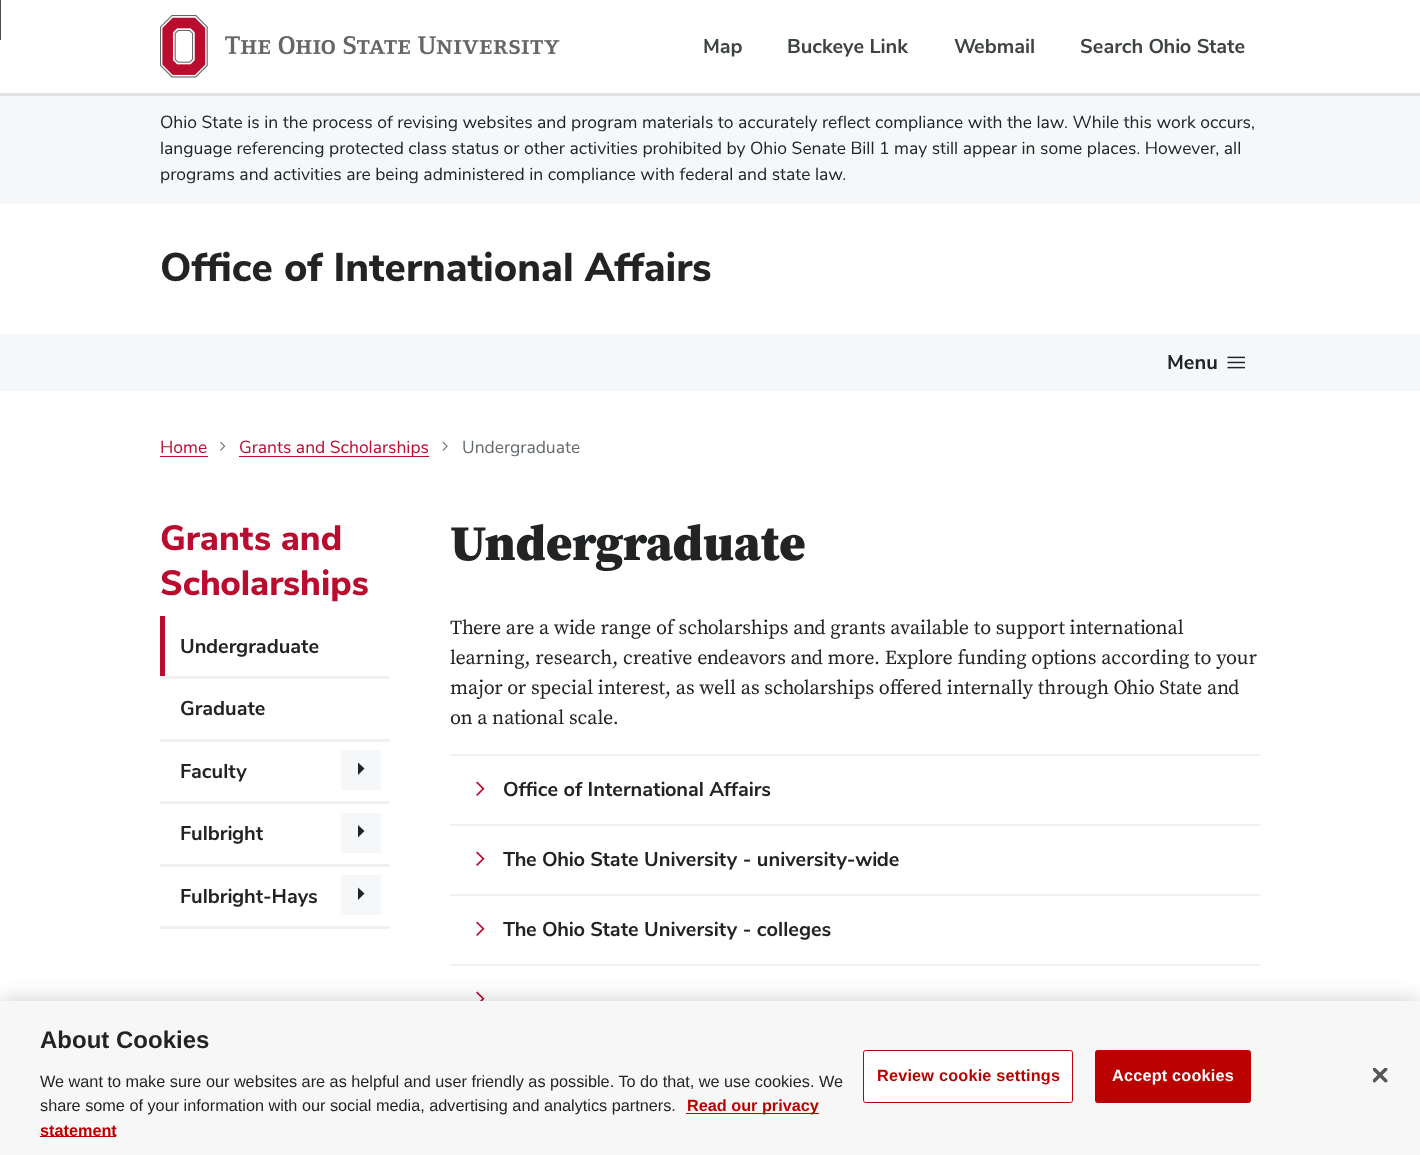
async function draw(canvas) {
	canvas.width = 1420;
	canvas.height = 1155;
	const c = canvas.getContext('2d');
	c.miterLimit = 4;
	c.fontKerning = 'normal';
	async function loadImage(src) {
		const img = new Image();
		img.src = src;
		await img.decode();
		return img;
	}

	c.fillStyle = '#f6f7f8';
	c.fillRect(0, 0, 1420, 1155);
	for (const [x, y, w, h, color] of [
		[0, 0, 1420, 93, '#fff'],
		[0, 0, 1, 40, '#4d4d4d'],
		[0, 93, 1420, 3, '#dfe3e5'],
	]) {
		c.fillStyle = color;
		c.fillRect(x, y, w, h);
	}
	c.drawImage(await loadImage('img1.png'), 160, 15, 400, 63);
	c.font = 'bold 20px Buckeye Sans';
	c.fillStyle = '#3f4443';
	for (const [text, x, y] of [
		['Map', 703, 53],
		['Buckeye Link', 787, 53],
		['Webmail', 954, 53],
		['Search Ohio State', 1080, 53],
	]) {
		c.fillText(text, x, y);
	}
	c.font = '17.5px Buckeye Sans';
	c.fillStyle = '#212325';
	for (const [text, x, y] of [
		['Ohio State is in the process of revising websites and program materials to accurately reflect compliance with the law. While this work occurs,', 160, 128],
		['language referencing protected class status or other activities prohibited by Ohio Senate Bill 1 may still appear in some places. However, all', 160, 154],
		['programs and activities are being administered in compliance with federal and state law.', 160, 180],
	]) {
		c.fillText(text, x, y);
	}
	c.fillStyle = '#fff';
	c.fillRect(0, 204, 1420, 130);
	c.font = '800 40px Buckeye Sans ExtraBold';
	c.fillStyle = '#212325';
	c.fillText('Office of International Affairs', 160, 281);
	c.fillStyle = '#fff';
	c.fillRect(0, 391, 1420, 610);
	c.font = 'bold 20px Buckeye Sans';
	c.fillStyle = '#212325';
	c.fillText('Menu', 1167, 369);
	c.drawImage(await loadImage('img2.png'), 1227, 356, 18, 13);
	c.font = '17.5px Buckeye Sans';
	c.fillStyle = '#ba0c2f';
	c.fillText('Home', 160, 453);
	c.fillRect(160, 456, 48, 1);
	c.drawImage(await loadImage('img3.png'), 220, 441, 6, 10);
	c.fillRect(239, 456, 190, 1);
	c.fillText('Grants and Scholarships', 239, 453);
	c.drawImage(await loadImage('img4.png'), 442, 441, 6, 10);
	c.fillStyle = '#646a6e';
	c.fillText('Undergraduate', 462, 453);
	c.font = '800 35px Buckeye Sans ExtraBold';
	c.fillStyle = '#ba0c2f';
	c.fillText('Grants and', 160, 550);
	c.fillText('Scholarships', 160, 595);
	c.fillStyle = '#eff1f2';
	c.fillRect(160, 676, 230, 3);
	c.fillStyle = '#ba0c2f';
	c.fillRect(160, 616, 5, 60);
	c.font = 'bold 20px Buckeye Sans';
	c.fillStyle = '#212325';
	c.fillText('Undergraduate', 180, 653);
	c.fillStyle = '#eff1f2';
	c.fillRect(160, 739, 230, 3);
	c.fillStyle = '#212325';
	c.fillText('Graduate', 180, 715);
	c.fillStyle = '#eff1f2';
	c.fillRect(160, 801, 230, 3);
	c.fillStyle = '#212325';
	c.fillText('Faculty', 180, 778);
	c.fillStyle = '#f6f7f8';
	c.fillRect(341, 750, 40, 40);
	c.fillStyle = '#212325';
	c.beginPath();
	c.moveTo(358, 775);
	c.lineTo(358, 762.5);
	c.lineTo(364.5, 768.5);
	c.closePath();
	c.fill();
	c.fillStyle = '#eff1f2';
	c.fillRect(160, 864, 230, 3);
	c.fillStyle = '#212325';
	c.fillText('Fulbright', 180, 840);
	c.fillStyle = '#f6f7f8';
	c.fillRect(341, 813, 40, 40);
	c.fillStyle = '#212325';
	c.beginPath();
	c.moveTo(358, 837.5);
	c.lineTo(358, 825);
	c.lineTo(364.5, 831);
	c.closePath();
	c.fill();
	c.fillStyle = '#eff1f2';
	c.fillRect(160, 926, 230, 3);
	c.fillStyle = '#212325';
	c.fillText('Fulbright-Hays', 180, 903);
	c.fillStyle = '#f6f7f8';
	c.fillRect(341, 875, 40, 40);
	c.fillStyle = '#212325';
	c.beginPath();
	c.moveTo(358, 900);
	c.lineTo(358, 887.5);
	c.lineTo(364.5, 893.5);
	c.closePath();
	c.fill();
	c.font = '900 50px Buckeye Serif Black';
	c.fillText('Undergraduate', 450, 560);
	c.font = '20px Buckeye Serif';
	for (const [text, x, y] of [
		['There are a wide range of scholarships and grants available to support international', 450, 634],
		['learning, research, creative endeavors and more. Explore funding options according to your', 450, 664],
		['major or special interest, as well as scholarships offered internally through Ohio State and', 450, 694],
		['on a national scale.', 450, 724],
	]) {
		c.fillText(text, x, y);
	}
	c.fillStyle = '#eff1f2';
	c.fillRect(450, 754, 810, 2);
	c.fillRect(450, 824, 810, 2);
	c.drawImage(await loadImage('img5.png'), 476, 781, 9, 15);
	c.font = 'bold 20px Buckeye Sans';
	c.fillStyle = '#212325';
	c.fillText('Office of International Affairs', 503, 796);
	c.fillStyle = '#eff1f2';
	c.fillRect(450, 894, 810, 2);
	c.drawImage(await loadImage('img5.png'), 476, 851, 9, 15);
	c.fillStyle = '#212325';
	c.fillText('The Ohio State University - university-wide', 503, 866);
	c.fillStyle = '#eff1f2';
	c.fillRect(450, 964, 810, 2);
	c.drawImage(await loadImage('img5.png'), 476, 921, 9, 15);
	c.fillStyle = '#212325';
	c.fillText('The Ohio State University - colleges', 503, 936);
	c.drawImage(await loadImage('img6.png'), 476, 991, 9, 10);
	c.fillStyle = '#00000033';
	c.filter = 'blur(11px)';
	c.beginPath();
	c.rect(0, 1001, 1420, 154);
	c.fill();
	c.filter = 'none';
	c.fillStyle = '#f7f7f7';
	c.fillRect(0, 1001, 1420, 154);
	c.font = 'bold 24px Liberation Sans';
	c.fillStyle = '#212325';
	c.fillText('About Cookies', 40, 1048);
	c.font = '16.25px Liberation Sans';
	c.fillText('We want to make sure our websites are as helpful and user friendly as possible. To do that, we use cookies. We', 40, 1087);
	c.fillText('share some of your information with our social media, advertising and analytics partners.', 40, 1111);
	c.fillStyle = '#b00';
	c.fillRect(686, 1113, 133, 1);
	c.font = 'bold 16.25px Liberation Sans';
	c.fillText('Read our privacy', 687, 1111);
	c.fillRect(40, 1136, 76, 1);
	c.fillText('statement', 40, 1136);
	c.fillStyle = '#fff';
	c.beginPath();
	c.roundRect(863.5, 1050.5, 209, 52, 2);
	c.fill();
	c.strokeStyle = '#b00';
	c.stroke();
	c.letterSpacing = '0.2px';
	c.fillStyle = '#b00';
	c.fillText('Review cookie settings', 877, 1081);
	c.beginPath();
	c.roundRect(1095.5, 1050.5, 155, 52, 2);
	c.fill();
	c.stroke();
	c.fillStyle = '#fff';
	c.fillText('Accept cookies', 1112, 1081);
	c.drawImage(await loadImage('img7.png'), 1373, 1068, 15, 15);
}

draw(document.querySelector('canvas'));
